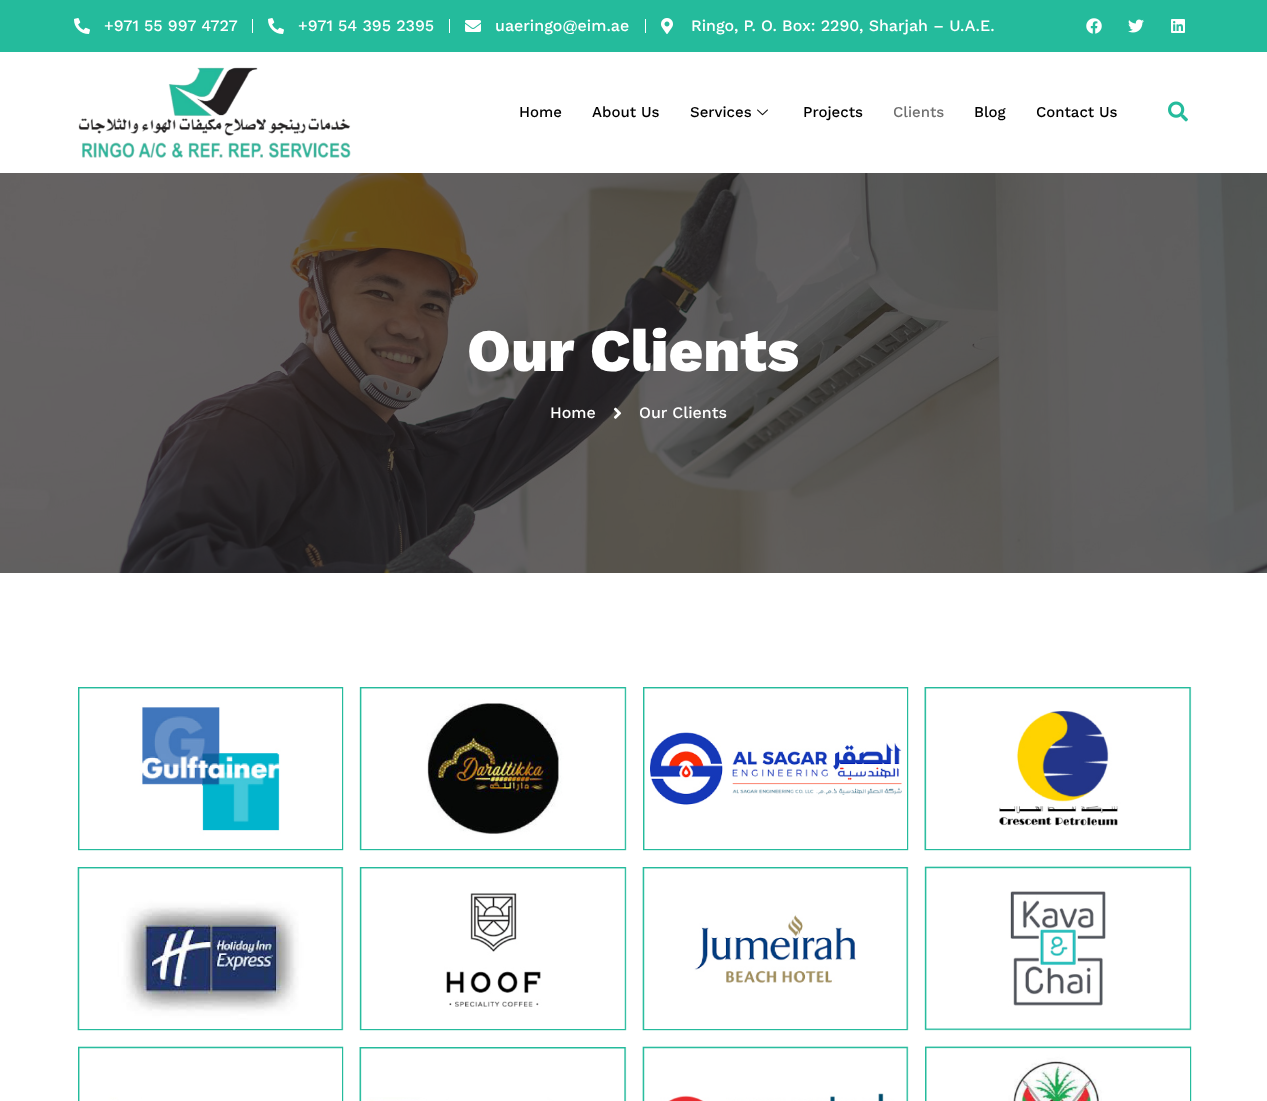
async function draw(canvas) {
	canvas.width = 1267;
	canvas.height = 1101;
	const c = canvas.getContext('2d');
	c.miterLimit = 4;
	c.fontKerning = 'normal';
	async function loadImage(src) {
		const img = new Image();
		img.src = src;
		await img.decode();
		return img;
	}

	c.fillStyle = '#fff';
	c.fillRect(0, 0, 1267, 1101);
	c.fillStyle = '#24bb9c';
	c.fillRect(0, 0, 1267, 52);
	c.drawImage(await loadImage('img1.png'), 74, 18, 16, 16);
	c.font = '500 16px Work Sans';
	c.fillStyle = '#fff';
	c.fillText('+971 55 997 4727', 104, 31);
	c.fillRect(252, 19, 1, 14);
	c.drawImage(await loadImage('img1.png'), 268, 18, 16, 16);
	c.fillText('+971 54 395 2395', 298, 31);
	c.fillRect(449, 19, 1, 14);
	c.drawImage(await loadImage('img2.png'), 465, 20, 16, 12);
	c.fillText('uaeringo@eim.ae', 495, 31);
	c.fillRect(645, 19, 1, 14);
	c.drawImage(await loadImage('img3.png'), 661, 18, 12, 16);
	c.fillText('Ringo, P. O. Box: 2290, Sharjah – U.A.E.', 691, 31);
	c.drawImage(await loadImage('img4.png'), 1086, 18, 16, 16);
	c.drawImage(await loadImage('img5.png'), 1128, 19, 16, 14);
	c.drawImage(await loadImage('img6.png'), 1171, 19, 14, 14);
	c.drawImage(await loadImage('img7.png'), 78, 67, 273, 91);
	c.font = '500 15px Work Sans';
	c.fillStyle = '#000';
	for (const [text, x, y] of [
		['Home', 519, 117],
		['About Us', 592, 117],
		['Services', 690, 117],
	]) {
		c.fillText(text, x, y);
	}
	c.drawImage(await loadImage('img8.png'), 757, 109, 11, 7);
	c.fillText('Projects', 803, 117);
	c.fillStyle = '#707070';
	c.fillText('Clients', 893, 117);
	c.fillStyle = '#000';
	c.fillText('Blog', 974, 117);
	c.fillText('Contact Us', 1036, 117);
	c.drawImage(await loadImage('img9.png'), 1168, 101, 20, 21);
	c.drawImage(await loadImage('img10.png'), 0, 173, 1267, 400);
	c.font = '800 60px Work Sans';
	c.fillStyle = '#fff';
	c.fillText('Our Clients', 467, 371);
	c.font = '500 16px Work Sans';
	c.fillText('Home', 550, 418);
	c.drawImage(await loadImage('img11.png'), 613, 407, 9, 12);
	c.fillText('Our Clients', 639, 418);
	c.drawImage(await loadImage('img12.png'), 78, 687, 266, 164);
	c.drawImage(await loadImage('img13.png'), 359, 687, 268, 164);
	c.drawImage(await loadImage('img14.png'), 643, 687, 266, 164);
	c.drawImage(await loadImage('img15.png'), 924, 687, 268, 164);
	c.drawImage(await loadImage('img16.png'), 77, 867, 267, 164);
	c.drawImage(await loadImage('img17.png'), 359, 867, 268, 164);
	c.drawImage(await loadImage('img18.png'), 642, 867, 267, 164);
	c.drawImage(await loadImage('img19.png'), 924, 866, 268, 165);
	c.drawImage(await loadImage('img20.png'), 78, 1046, 266, 55);
	c.drawImage(await loadImage('img21.png'), 359, 1047, 268, 54);
	c.drawImage(await loadImage('img22.png'), 642, 1046, 267, 55);
	c.drawImage(await loadImage('img23.png'), 925, 1046, 267, 55);
}

draw(document.querySelector('canvas'));
